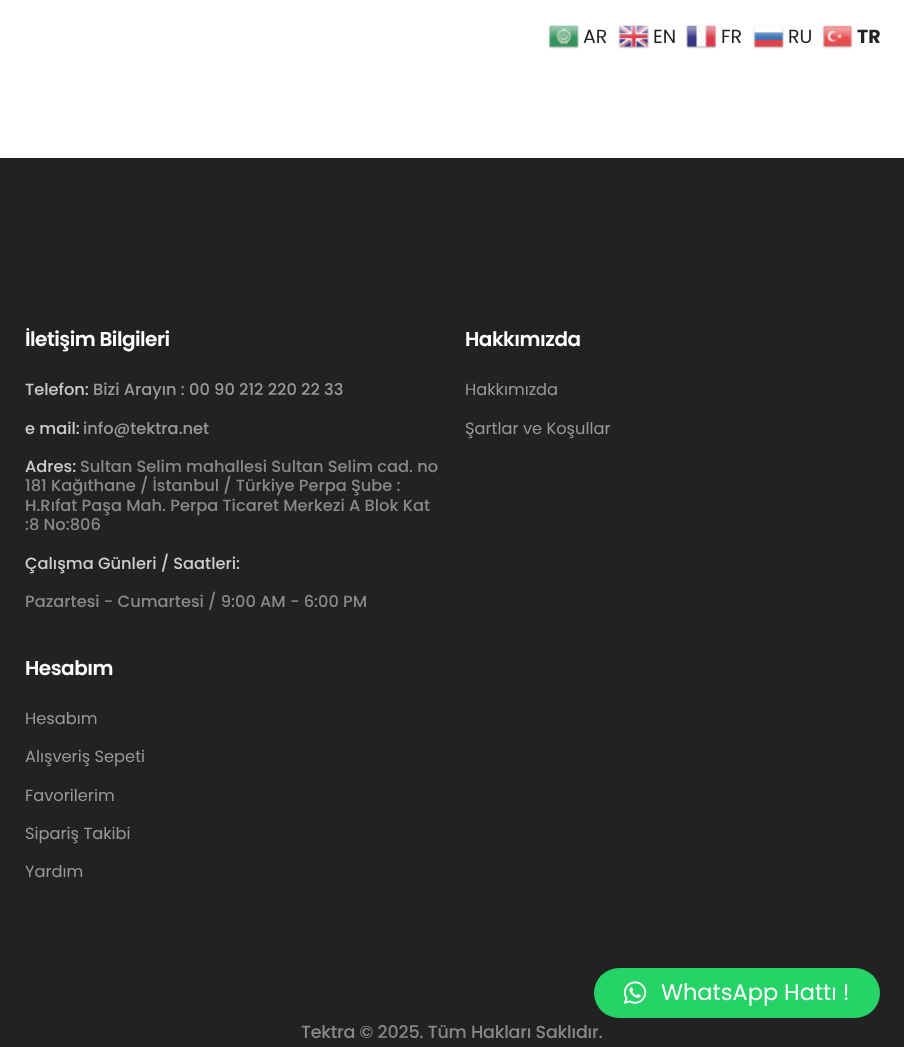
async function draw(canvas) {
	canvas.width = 904;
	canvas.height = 1047;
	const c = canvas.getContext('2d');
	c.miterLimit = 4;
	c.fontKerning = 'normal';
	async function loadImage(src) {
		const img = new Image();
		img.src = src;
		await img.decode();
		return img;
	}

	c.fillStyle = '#fff';
	c.fillRect(0, 0, 904, 1047);
	c.drawImage(await loadImage('img1.png'), 548, 25, 31, 24);
	c.font = '19px Poppins';
	c.fillStyle = '#222';
	c.fillText('AR', 583, 43);
	c.drawImage(await loadImage('img2.png'), 618, 25, 31, 24);
	c.fillText('EN', 653, 43);
	c.drawImage(await loadImage('img3.png'), 686, 25, 31, 24);
	c.fillText('FR', 721, 43);
	c.drawImage(await loadImage('img4.png'), 753, 25, 31, 24);
	c.fillText('RU', 788, 43);
	c.drawImage(await loadImage('img5.png'), 822, 25, 31, 24);
	c.font = 'bold 19px Poppins';
	c.fillText('TR', 857, 43);
	c.fillRect(0, 158, 904, 889);
	c.letterSpacing = '-0.5px';
	c.font = '600 20px Poppins';
	c.fillStyle = '#fff';
	c.fillText('İletişim Bilgileri', 25, 346);
	c.letterSpacing = '0px';
	c.font = '500 16.25px Poppins';
	c.fillStyle = '#ccc';
	c.fillText('Telefon:', 25, 395);
	c.fillStyle = '#999';
	c.fillText('Bizi Arayın : 00 90 212 220 22 33', 93, 395);
	c.fillStyle = '#ccc';
	c.fillText('e mail:', 25, 434);
	c.fillStyle = '#999';
	c.fillText('info@tektra.net', 83, 434);
	c.fillStyle = '#ccc';
	c.fillText('Adres:', 25, 472);
	c.fillStyle = '#888';
	for (const [text, x, y] of [
		['Sultan Selim mahallesi Sultan Selim cad. no', 80, 472],
		['181 Kağıthane / İstanbul / Türkiye Perpa Şube :', 25, 491],
		['H.Rıfat Paşa Mah. Perpa Ticaret Merkezi A Blok Kat', 25, 511],
		[':8 No:806', 25, 530],
	]) {
		c.fillText(text, x, y);
	}
	c.fillStyle = '#ccc';
	c.fillText('Çalışma Günleri / Saatleri:', 25, 569);
	c.fillStyle = '#888';
	c.fillText('Pazartesi - Cumartesi / 9:00 AM - 6:00 PM', 25, 607);
	c.letterSpacing = '-0.5px';
	c.font = '600 20px Poppins';
	c.fillStyle = '#fff';
	c.fillText('Hakkımızda', 465, 346);
	c.letterSpacing = '0px';
	c.font = '16.25px Poppins';
	c.fillStyle = '#999';
	c.fillText('Hakkımızda', 465, 395);
	c.fillText('Şartlar ve Koşullar', 465, 434);
	c.letterSpacing = '-0.5px';
	c.font = '600 20px Poppins';
	c.fillStyle = '#fff';
	c.fillText('Hesabım', 25, 675);
	c.letterSpacing = '0px';
	c.font = '16.25px Poppins';
	c.fillStyle = '#999';
	for (const [text, x, y] of [
		['Hesabım', 25, 724],
		['Alışveriş Sepeti', 25, 762],
		['Favorilerim', 25, 801],
		['Sipariş Takibi', 25, 839],
		['Yardım', 25, 877],
	]) {
		c.fillText(text, x, y);
	}
	c.letterSpacing = '-0.2px';
	c.font = '500 17.5px Poppins';
	c.fillStyle = '#888';
	c.fillText('Tektra © 2025. Tüm Hakları Saklıdır.', 301, 1038);
	c.fillStyle = '#25d366';
	c.beginPath();
	c.roundRect(594, 968, 286, 50, 25);
	c.fill();
	c.drawImage(await loadImage('img6.png'), 623, 981, 24, 23);
	c.letterSpacing = '0px';
	c.font = '22.5px Poppins';
	c.fillStyle = '#fff';
	c.fillText('WhatsApp Hattı !', 661, 1000);
}

draw(document.querySelector('canvas'));
